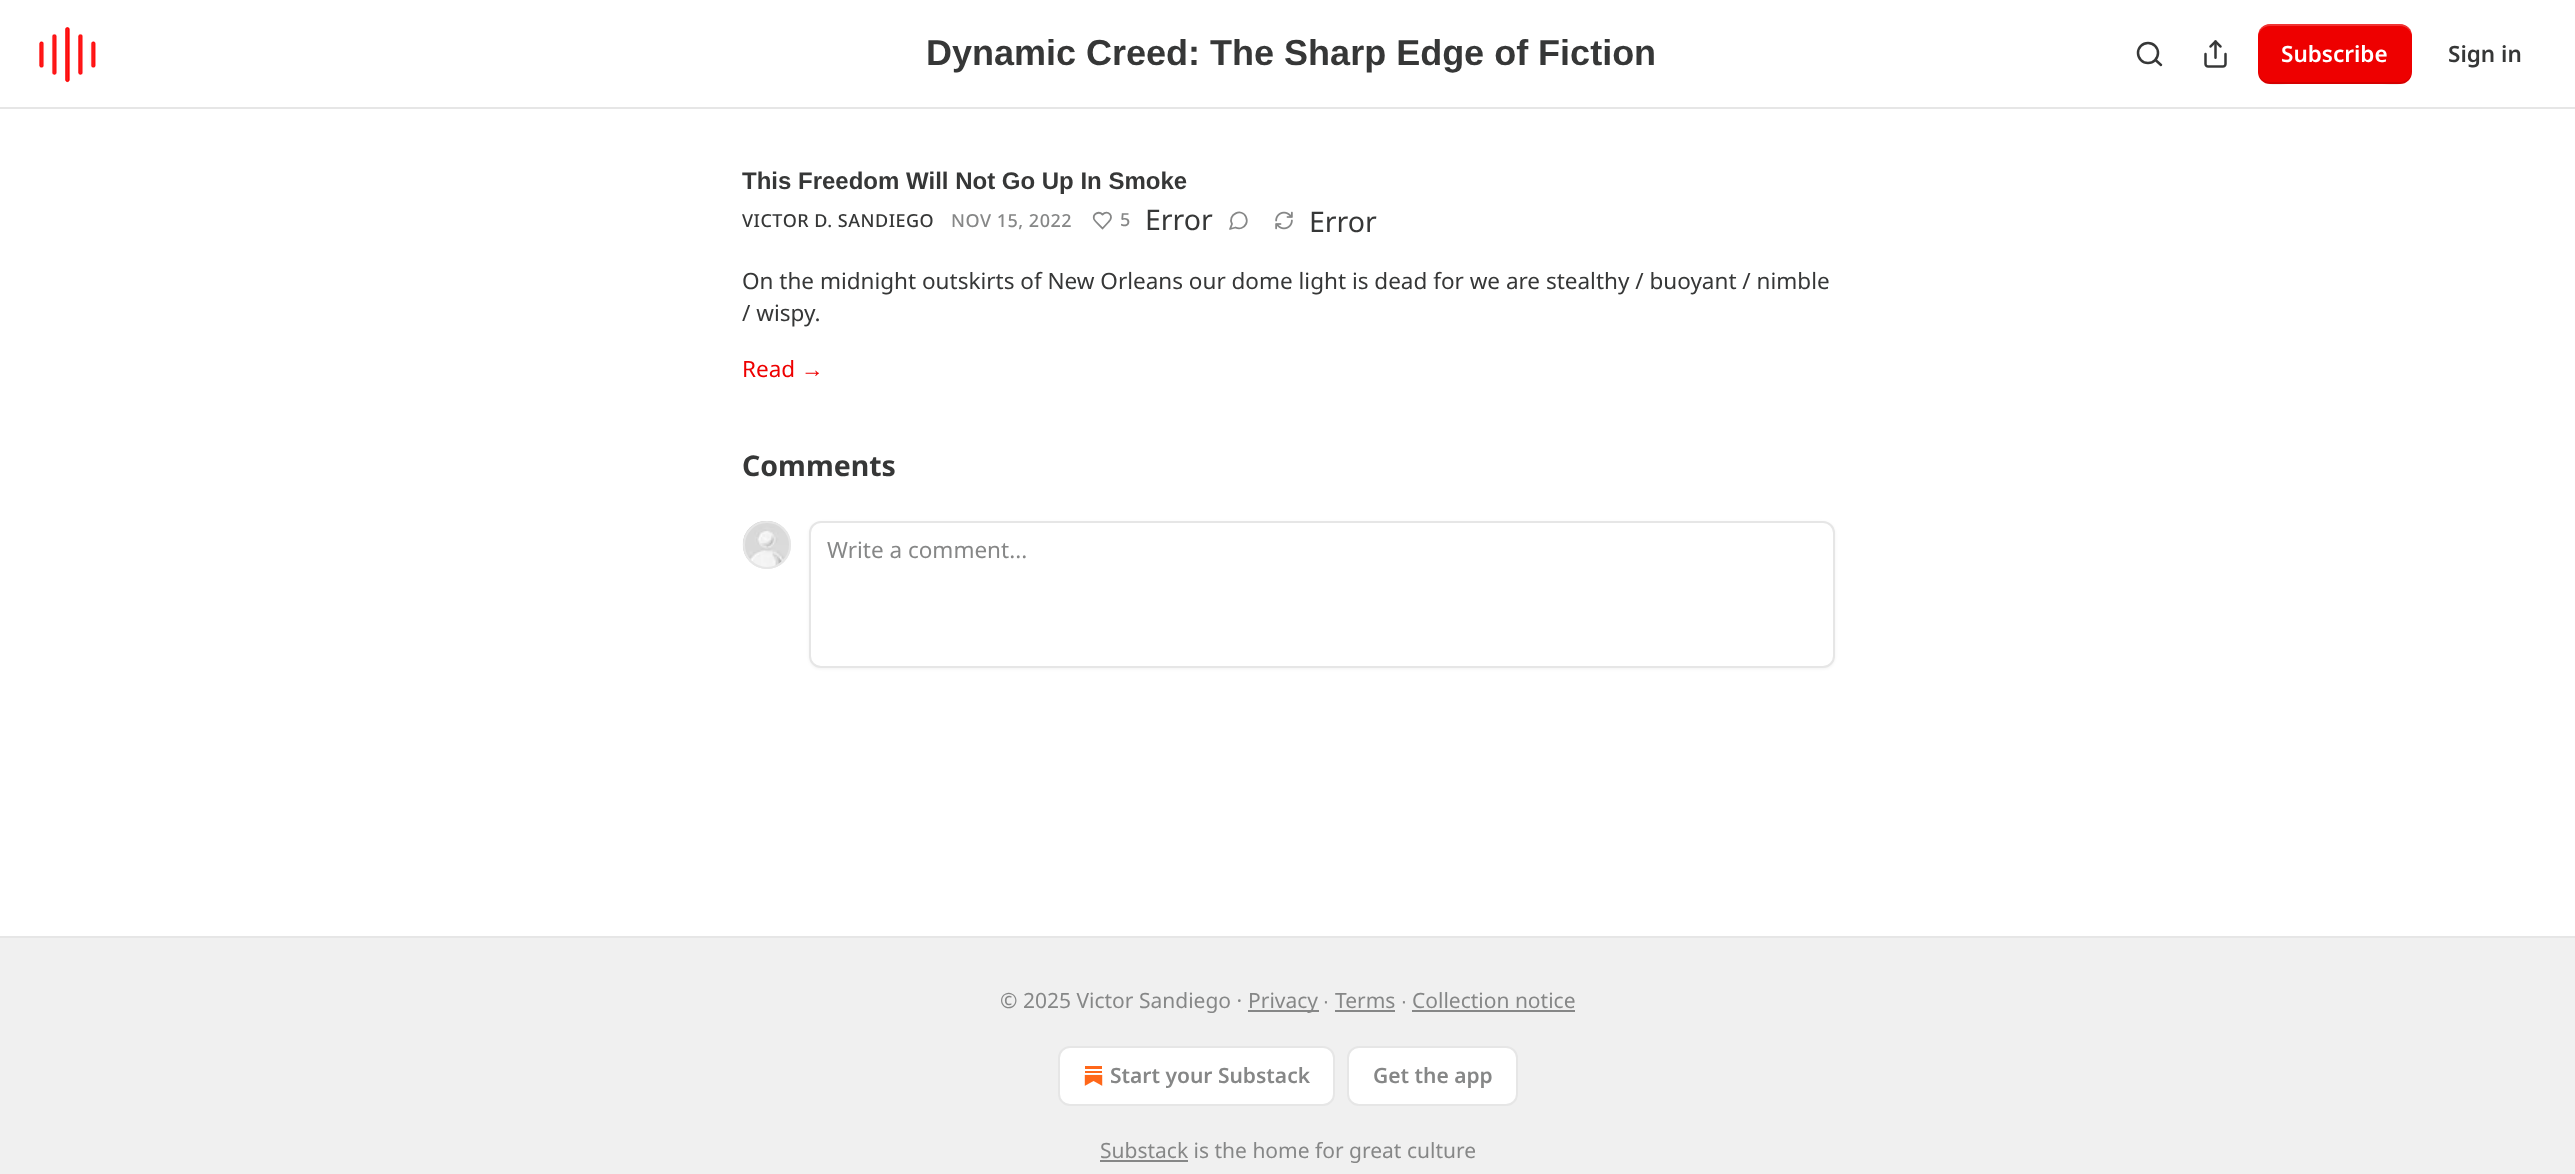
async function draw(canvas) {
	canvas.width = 2575;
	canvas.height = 1174;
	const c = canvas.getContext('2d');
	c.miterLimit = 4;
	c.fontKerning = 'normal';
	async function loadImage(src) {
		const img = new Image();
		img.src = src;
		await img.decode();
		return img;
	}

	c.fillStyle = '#fff';
	c.fillRect(0, 0, 2575, 1174);
	c.fillStyle = '#e6e6e6';
	c.fillRect(0, 107, 2575, 2);
	c.drawImage(await loadImage('img1.png'), 39, 27, 57, 56);
	c.font = 'bold 36px Liberation Sans';
	c.fillStyle = '#363737';
	c.fillText('Dynamic Creed: The Sharp Edge of Fiction', 926, 65);
	c.beginPath();
	c.arc(2148, 53, 10, 0, 2 * Math.PI);
	c.strokeStyle = '#363737';
	c.lineWidth = 2.5;
	c.stroke();
	c.beginPath();
	c.moveTo(2161, 65);
	c.lineTo(2155.5, 60);
	c.lineCap = 'round';
	c.lineJoin = 'round';
	c.stroke();
	c.drawImage(await loadImage('img2.png'), 2204, 40, 23, 28);
	c.fillStyle = '#e00';
	c.beginPath();
	c.roundRect(2258, 24, 154, 60, 12);
	c.fill();
	c.fillStyle = '#0000001a';
	c.beginPath();
	c.moveTo(2258, 70);
	c.bezierCurveTo(2258, 89, 2278, 84, 2292, 84);
	c.lineTo(2378, 84);
	c.bezierCurveTo(2392, 84, 2412, 89, 2412, 70);
	c.bezierCurveTo(2412, 77, 2407, 82, 2400, 82);
	c.lineTo(2270, 82);
	c.bezierCurveTo(2263, 82, 2258, 77, 2258, 70);
	c.closePath();
	c.fill();
	c.fillStyle = '#ffffff33';
	c.beginPath();
	c.moveTo(2270, 26);
	c.lineTo(2400, 26);
	c.bezierCurveTo(2407, 26, 2412, 31, 2412, 38);
	c.bezierCurveTo(2412, 19, 2392, 24, 2378, 24);
	c.lineTo(2292, 24);
	c.bezierCurveTo(2278, 24, 2258, 19, 2258, 38);
	c.bezierCurveTo(2258, 31, 2263, 26, 2270, 26);
	c.closePath();
	c.fill();
	c.font = '600 22.5px Noto Sans';
	c.fillStyle = '#fff';
	c.fillText('Subscribe', 2281, 62);
	c.fillStyle = '#363737';
	c.fillText('Sign in', 2448, 62);
	c.font = 'bold 24px Liberation Sans';
	c.fillText('This Freedom Will Not Go Up In Smoke', 742, 189);
	c.letterSpacing = '0.5px';
	c.font = '500 18px Noto Sans';
	c.fillText('VICTOR D. SANDIEGO', 742, 227);
	c.fillStyle = '#868787';
	c.fillText('NOV 15, 2022', 951, 227);
	c.beginPath();
	c.moveTo(1108.5, 222);
	c.bezierCurveTo(1115, 216, 1107.5, 209.5, 1102.5, 214.5);
	c.bezierCurveTo(1099, 211, 1092.5, 213.5, 1094, 219);
	c.bezierCurveTo(1095, 221.5, 1100.5, 226, 1102.5, 228.5);
	c.closePath();
	c.strokeStyle = '#868787';
	c.lineWidth = 1.8;
	c.stroke();
	c.fillText('5', 1120, 226);
	c.letterSpacing = '0px';
	c.font = '28.5px Noto Sans';
	c.fillStyle = '#363737';
	c.fillText('Error', 1145, 230);
	c.beginPath();
	c.moveTo(1235.5, 227.5);
	c.bezierCurveTo(1239.5, 229.5, 1244, 228, 1246, 224);
	c.bezierCurveTo(1247, 222, 1247, 219.5, 1246, 217);
	c.bezierCurveTo(1242, 207.5, 1227, 214.5, 1232, 224);
	c.lineTo(1230, 229);
	c.closePath();
	c.stroke();
	c.drawImage(await loadImage('img3.png'), 1275, 211, 18, 19);
	c.fillText('Error', 1309, 232);
	c.font = '22.5px Noto Sans';
	c.fillText('On the midnight outskirts of New Orleans our dome light is dead for we are stealthy / buoyant / nimble', 742, 289);
	c.fillText('/ wispy.', 742, 321);
	c.fillStyle = '#e00';
	c.fillText('Read', 742, 377);
	c.font = '22.5px Liberation Sans';
	c.fillText('→', 801, 377);
	c.font = 'bold 28.5px Noto Sans';
	c.fillStyle = '#363737';
	c.fillText('Comments', 742, 476);
	c.beginPath();
	c.arc(767, 545, 23, 0, 2 * Math.PI);
	c.strokeStyle = '#e6e6e6';
	c.lineWidth = 2;
	c.stroke();
	c.drawImage(await loadImage('img4.png'), 742, 521, 48, 47);
	c.beginPath();
	c.arc(767, 545, 23, 0, 2 * Math.PI);
	c.stroke();
	c.fillStyle = '#0000000d';
	c.filter = 'blur(1.5px)';
	c.beginPath();
	c.roundRect(809, 522, 1026, 147, 12);
	c.fill();
	c.filter = 'none';
	c.fillStyle = '#fff';
	c.beginPath();
	c.roundRect(810, 522, 1024, 145, 11);
	c.fill();
	c.lineJoin = 'miter';
	c.stroke();
	c.font = '22.5px Noto Sans';
	c.fillStyle = '#868787';
	c.fillText('Write a comment...', 827, 558);
	c.fillStyle = '#f0f0f0';
	c.fillRect(0, 938, 2575, 236);
	c.fillStyle = '#e6e6e6';
	c.fillRect(0, 936, 2575, 2);
	c.font = '21px Noto Sans';
	c.fillStyle = '#868787';
	c.fillText('© 2025 Victor Sandiego ·', 1000, 1008);
	c.fillRect(1248, 1010, 71, 2);
	c.fillText('Privacy', 1248, 1008);
	c.font = '21px Liberation Sans';
	c.fillText('∙', 1323, 1008);
	c.font = '21px Noto Sans';
	c.fillText('Terms', 1335, 1008);
	c.fillRect(1335, 1010, 60, 2);
	c.font = '21px Liberation Sans';
	c.fillText('∙', 1401, 1008);
	c.font = '21px Noto Sans';
	c.fillText('Collection notice', 1412, 1008);
	c.fillRect(1412, 1010, 163, 2);
	c.fillStyle = '#fff';
	c.beginPath();
	c.roundRect(1059, 1047, 275, 58, 11);
	c.fill();
	c.stroke();
	c.drawImage(await loadImage('img5.png'), 1084, 1066, 19, 20);
	c.font = '600 21px Noto Sans';
	c.fillStyle = '#868787';
	c.fillText('Start your Substack', 1110, 1083);
	c.fillStyle = '#fff';
	c.beginPath();
	c.roundRect(1348, 1047, 169, 58, 11);
	c.fill();
	c.stroke();
	c.fillStyle = '#868787';
	c.fillText('Get the app', 1373, 1083);
	c.fillRect(1100, 1160, 88, 2);
	c.font = '21px Noto Sans';
	c.fillText('Substack is the home for great culture', 1100, 1158);
}

draw(document.querySelector('canvas'));
